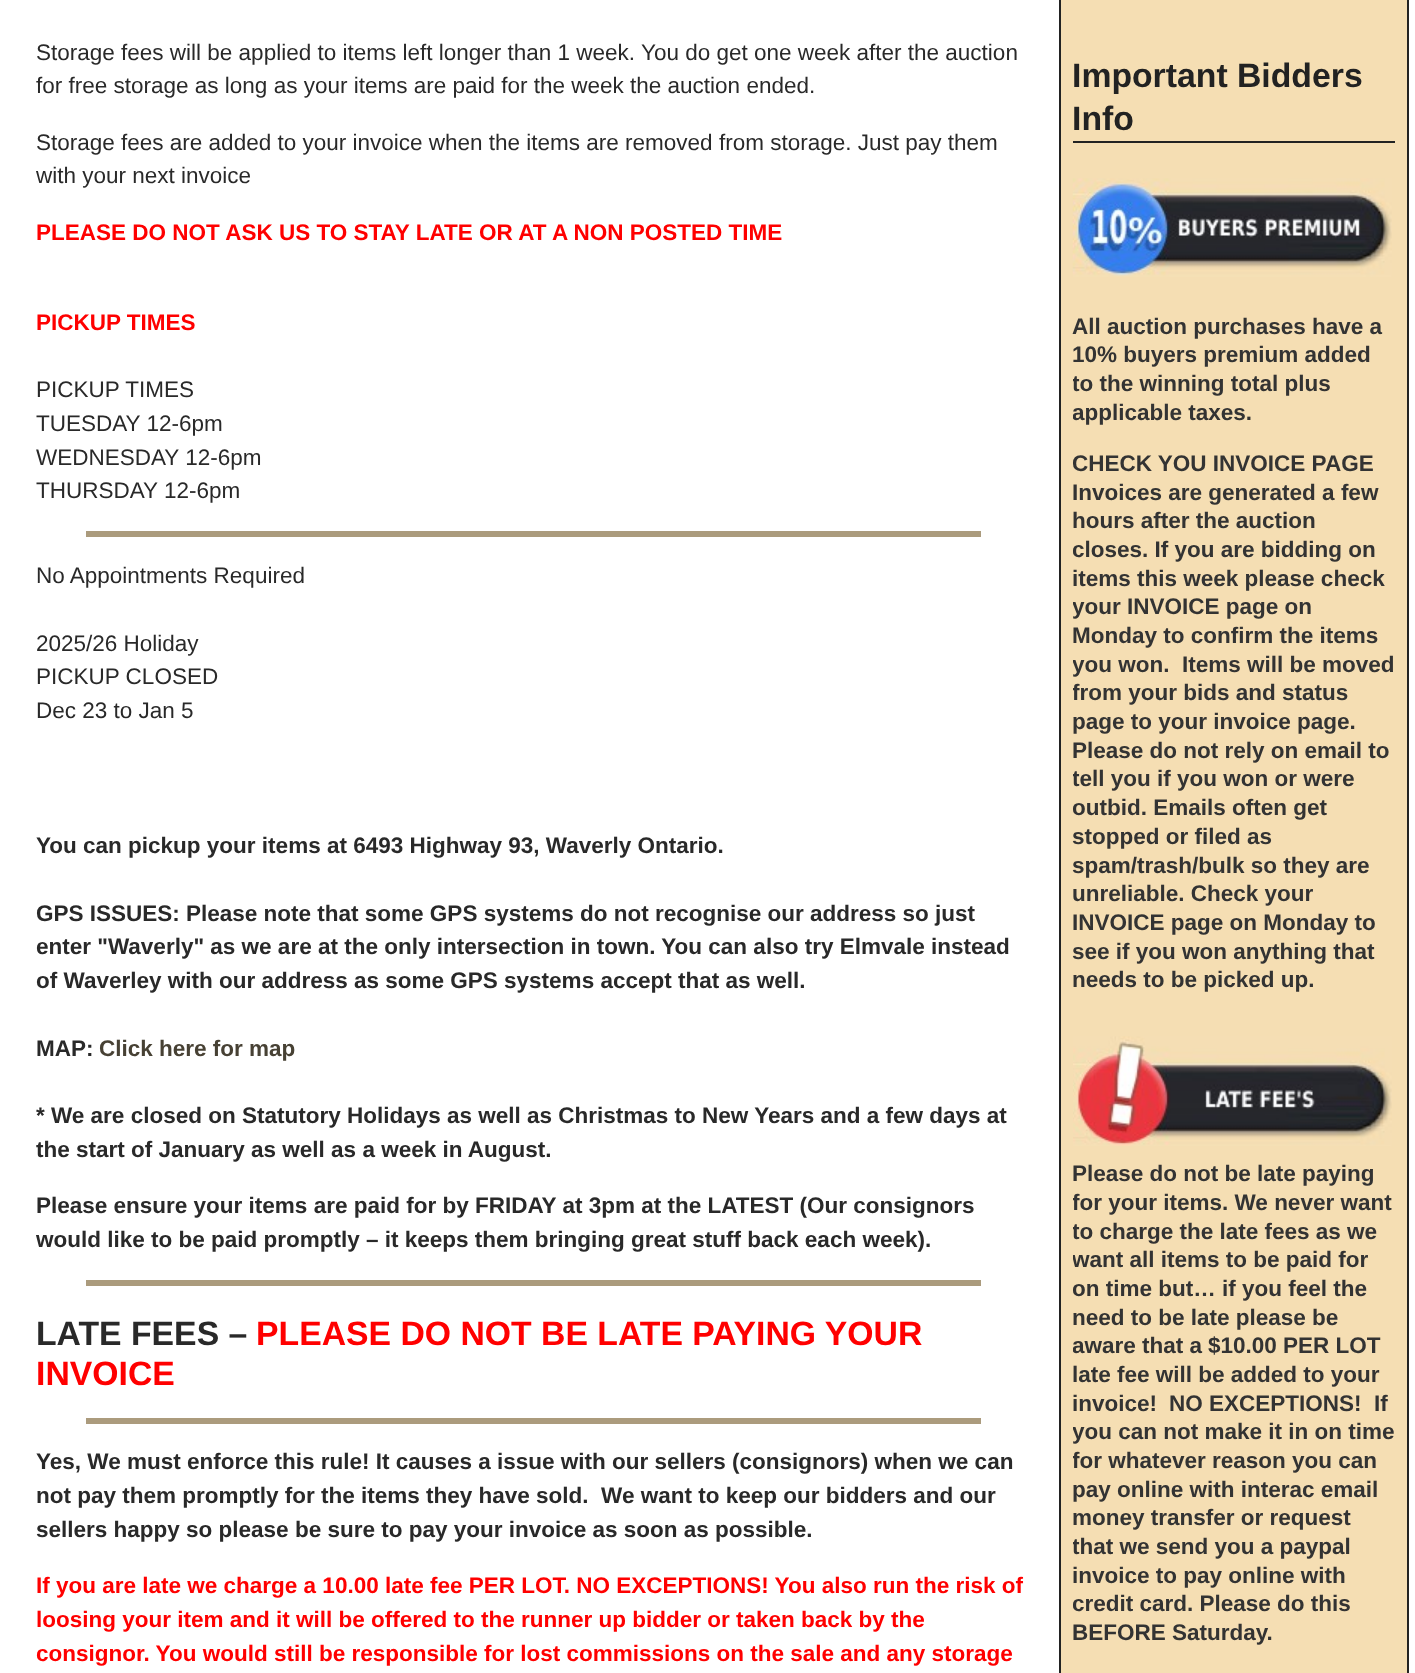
async function draw(canvas) {
	canvas.width = 1415;
	canvas.height = 1673;
	const c = canvas.getContext('2d');
	c.miterLimit = 4;
	c.fontKerning = 'normal';
	async function loadImage(src) {
		const img = new Image();
		img.src = src;
		await img.decode();
		return img;
	}

	c.fillStyle = '#fff';
	c.fillRect(0, 0, 1415, 1673);
	c.font = '22.5px Liberation Sans';
	c.fillStyle = '#292929';
	for (const [text, x, y] of [
		['Storage fees will be applied to items left longer than 1 week. You do get one week after the auction', 36, 60],
		['for free storage as long as your items are paid for the week the auction ended.', 36, 93],
		['Storage fees are added to your invoice when the items are removed from storage. Just pay them', 36, 150],
		['with your next invoice', 36, 183],
	]) {
		c.fillText(text, x, y);
	}
	c.font = 'bold 22.5px Liberation Sans';
	c.fillStyle = '#f00';
	c.fillText('PLEASE DO NOT ASK US TO STAY LATE OR AT A NON POSTED TIME', 36, 240);
	c.fillText('PICKUP TIMES', 36, 330);
	c.font = '22.5px Liberation Sans';
	c.fillStyle = '#292929';
	for (const [text, x, y] of [
		['PICKUP TIMES', 36, 397],
		['TUESDAY 12-6pm', 36, 431],
		['WEDNESDAY 12-6pm', 36, 465],
		['THURSDAY 12-6pm', 36, 498],
	]) {
		c.fillText(text, x, y);
	}
	c.fillStyle = '#ab9b7d';
	c.fillRect(86, 531, 895, 6);
	c.fillStyle = '#292929';
	for (const [text, x, y] of [
		['No Appointments Required', 36, 583],
		['2025/26 Holiday', 36, 651],
		['PICKUP CLOSED', 36, 684],
		['Dec 23 to Jan 5', 36, 718],
	]) {
		c.fillText(text, x, y);
	}
	c.font = 'bold 22.5px Liberation Sans';
	for (const [text, x, y] of [
		['You can pickup your items at 6493 Highway 93, Waverly Ontario.', 36, 853],
		['GPS ISSUES: Please note that some GPS systems do not recognise our address so just', 36, 921],
		['enter "Waverly" as we are at the only intersection in town. You can also try Elmvale instead', 36, 954],
		['of Waverley with our address as some GPS systems accept that as well.', 36, 988],
		['MAP:', 36, 1056],
	]) {
		c.fillText(text, x, y);
	}
	c.fillStyle = '#474134';
	c.fillText('Click here for map', 99, 1056);
	c.fillStyle = '#292929';
	for (const [text, x, y] of [
		['* We are closed on Statutory Holidays as well as Christmas to New Years and a few days at', 36, 1123],
		['the start of January as well as a week in August.', 36, 1157],
		['Please ensure your items are paid for by FRIDAY at 3pm at the LATEST (Our consignors', 36, 1213],
		['would like to be paid promptly – it keeps them bringing great stuff back each week).', 36, 1247],
	]) {
		c.fillText(text, x, y);
	}
	c.fillStyle = '#ab9b7d';
	c.fillRect(86, 1280, 895, 6);
	c.font = 'bold 33.75px Liberation Sans';
	c.fillStyle = '#292929';
	c.fillText('LATE FEES –', 36, 1345);
	c.fillStyle = '#f00';
	c.fillText('PLEASE DO NOT BE LATE PAYING YOUR', 256, 1345);
	c.fillText('INVOICE', 36, 1385);
	c.fillStyle = '#ab9b7d';
	c.fillRect(86, 1418, 895, 6);
	c.font = 'bold 22.5px Liberation Sans';
	c.fillStyle = '#292929';
	for (const [text, x, y] of [
		['Yes, We must enforce this rule! It causes a issue with our sellers (consignors) when we can', 36, 1469],
		['not pay them promptly for the items they have sold.  We want to keep our bidders and our', 36, 1503],
		['sellers happy so please be sure to pay your invoice as soon as possible.', 36, 1537],
	]) {
		c.fillText(text, x, y);
	}
	c.fillStyle = '#f00';
	for (const [text, x, y] of [
		['If you are late we charge a 10.00 late fee PER LOT. NO EXCEPTIONS! You also run the risk of', 36, 1593],
		['loosing your item and it will be offered to the runner up bidder or taken back by the', 36, 1627],
		['consignor. You would still be responsible for lost commissions on the sale and any storage', 36, 1661],
	]) {
		c.fillText(text, x, y);
	}
	c.fillStyle = '#f5deb3';
	c.beginPath();
	c.rect(1060, -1, 348, 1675);
	c.fill();
	c.strokeStyle = '#222';
	c.lineWidth = 2;
	c.stroke();
	c.fillStyle = '#222';
	c.fillRect(1073, 141, 322, 2);
	c.font = 'bold 33.75px Liberation Sans';
	c.fillText('Important Bidders', 1072, 87);
	c.fillText('Info', 1072, 130);
	c.drawImage(await loadImage('img1.png'), 1072, 178, 320, 99);
	c.font = 'bold 22.5px Liberation Sans';
	c.fillStyle = '#333';
	c.fillText('All auction purchases have a', 1072, 334);
	c.fillText('10% buyers premium added', 1072, 362);
	c.save();
	c.beginPath();
	c.rect(1073, 56, 322, 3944);
	c.clip();
	for (const [text, x, y] of [
		['to the winning total plus', 1072, 391],
		['applicable taxes.', 1072, 420],
		['CHECK YOU INVOICE PAGE', 1072, 471],
	]) {
		c.fillText(text, x, y);
	}
	c.restore();
	c.fillText('Invoices are generated a few', 1072, 500);
	c.fillText('hours after the auction', 1072, 528);
	c.save();
	c.beginPath();
	c.rect(1073, 56, 322, 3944);
	c.clip();
	c.fillText('closes. If you are bidding on', 1072, 557);
	c.restore();
	c.fillText('items this week please check', 1072, 586);
	c.save();
	c.beginPath();
	c.rect(1073, 56, 322, 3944);
	c.clip();
	c.fillText('your INVOICE page on', 1072, 614);
	c.restore();
	c.fillText('Monday to confirm the items', 1072, 643);
	c.save();
	c.beginPath();
	c.rect(1073, 56, 322, 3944);
	c.clip();
	c.fillText('you won.  Items will be moved', 1072, 672);
	c.fillText('from your bids and status', 1072, 700);
	c.restore();
	c.fillText('page to your invoice page.', 1072, 729);
	c.fillText('Please do not rely on email to', 1072, 758);
	c.save();
	c.beginPath();
	c.rect(1073, 56, 322, 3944);
	c.clip();
	c.fillText('tell you if you won or were', 1072, 786);
	c.fillText('outbid. Emails often get', 1072, 815);
	c.restore();
	for (const [text, x, y] of [
		['stopped or filed as', 1072, 844],
		['spam/trash/bulk so they are', 1072, 873],
		['unreliable. Check your', 1072, 901],
		['INVOICE page on Monday to', 1072, 930],
		['see if you won anything that', 1072, 959],
		['needs to be picked up.', 1072, 987],
	]) {
		c.fillText(text, x, y);
	}
	c.drawImage(await loadImage('img2.png'), 1073, 1036, 319, 110);
	c.fillText('Please do not be late paying', 1072, 1181);
	c.save();
	c.beginPath();
	c.rect(1073, 56, 322, 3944);
	c.clip();
	for (const [text, x, y] of [
		['for your items. We never want', 1072, 1210],
		['to charge the late fees as we', 1072, 1239],
		['want all items to be paid for', 1072, 1267],
		['on time but… if you feel the', 1072, 1296],
	]) {
		c.fillText(text, x, y);
	}
	c.restore();
	c.fillText('need to be late please be', 1072, 1325);
	c.save();
	c.beginPath();
	c.rect(1073, 56, 322, 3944);
	c.clip();
	c.fillText('aware that a', 1072, 1353);
	c.restore();
	for (const [text, x, y] of [
		['$10.00 PER LOT', 1208, 1353],
		['late fee will be added to your', 1072, 1382],
		['invoice!', 1072, 1411],
		['NO EXCEPTIONS!', 1169, 1411],
		['If', 1374, 1411],
	]) {
		c.fillText(text, x, y);
	}
	c.save();
	c.beginPath();
	c.rect(1073, 56, 322, 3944);
	c.clip();
	c.fillText('you can not make it in on time', 1072, 1439);
	c.fillText('for whatever reason you can', 1072, 1468);
	c.restore();
	c.fillText('pay online with interac email', 1072, 1497);
	c.fillText('money transfer or request', 1072, 1525);
	c.save();
	c.beginPath();
	c.rect(1073, 56, 322, 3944);
	c.clip();
	c.fillText('that we send you a paypal', 1072, 1554);
	c.restore();
	c.fillText('invoice to pay online with', 1072, 1583);
	c.save();
	c.beginPath();
	c.rect(1073, 56, 322, 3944);
	c.clip();
	c.fillText('credit card. Please do this', 1072, 1611);
	c.restore();
	c.fillText('BEFORE Saturday.', 1072, 1640);
}

draw(document.querySelector('canvas'));
